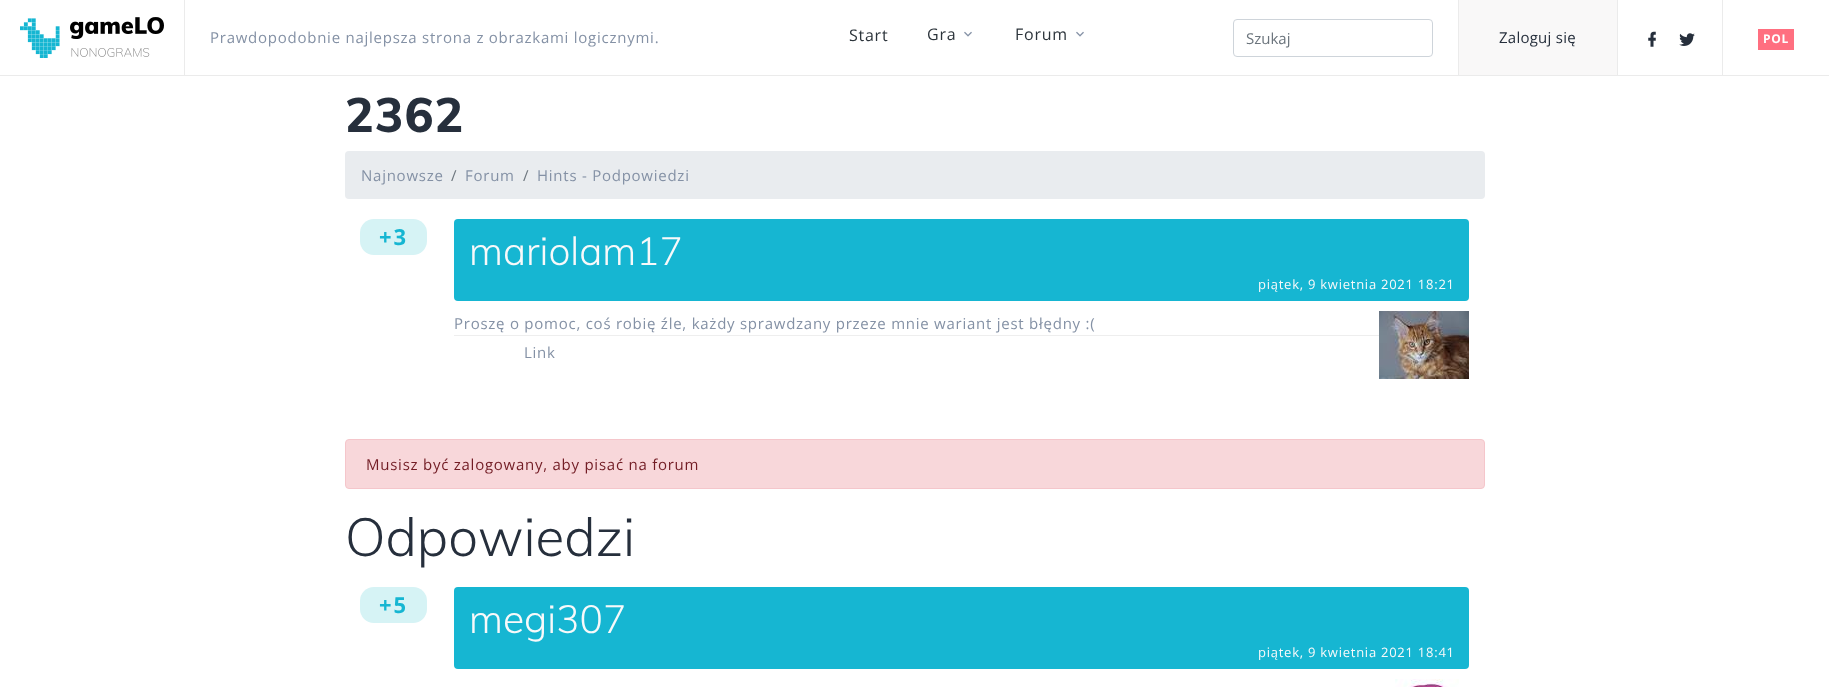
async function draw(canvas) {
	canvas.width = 1829;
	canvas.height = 687;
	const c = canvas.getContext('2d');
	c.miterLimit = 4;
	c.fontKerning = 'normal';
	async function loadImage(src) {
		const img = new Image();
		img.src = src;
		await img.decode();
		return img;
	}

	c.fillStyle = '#fff';
	c.fillRect(0, 0, 1829, 687);
	c.fillStyle = '#ebebeb';
	c.fillRect(0, 75, 1829, 1);
	c.fillRect(184, 0, 1, 75);
	c.drawImage(await loadImage('img1.png'), 20, 17, 144, 41);
	c.letterSpacing = '0.75px';
	c.font = '15px Open Sans';
	c.fillStyle = '#8491a5';
	c.fillText('Prawdopodobnie najlepsza strona z obrazkami logicznymi.', 210, 43);
	c.font = '16px Open Sans';
	c.fillStyle = '#2c343b';
	c.fillText('Start', 849, 41);
	c.fillText('Gra', 927, 40);
	c.drawImage(await loadImage('img2.png'), 964, 31, 8, 6);
	c.fillText('Forum', 1015, 40);
	c.drawImage(await loadImage('img2.png'), 1076, 31, 8, 6);
	c.beginPath();
	c.roundRect(1233.5, 19.5, 199, 37, 3.5);
	c.strokeStyle = '#ced4da';
	c.stroke();
	c.letterSpacing = '0px';
	c.font = '15px Open Sans';
	c.fillStyle = '#6c757d';
	c.fillText('Szukaj', 1246, 44);
	c.fillStyle = '#f9f8f8';
	c.fillRect(1459, 0, 158, 75);
	c.fillStyle = '#ebebeb';
	c.fillRect(1458, 0, 1, 75);
	c.letterSpacing = '0.25px';
	c.fillStyle = '#262f3c';
	c.fillText('Zaloguj się', 1499, 43);
	c.fillStyle = '#ebebeb';
	c.fillRect(1617, 0, 1, 75);
	c.drawImage(await loadImage('img3.png'), 1648, 31, 8, 16);
	c.drawImage(await loadImage('img4.png'), 1679, 33, 16, 13);
	c.fillRect(1722, 0, 1, 75);
	c.fillStyle = '#ff6f80';
	c.fillRect(1758, 29, 36, 21);
	c.letterSpacing = '0.75px';
	c.font = 'bold 12px Open Sans';
	c.fillStyle = '#fff';
	c.fillText('POL', 1763, 43);
	c.letterSpacing = '1px';
	c.font = '800 48px Muli';
	c.fillStyle = '#262f3c';
	c.fillText('2362', 345, 132);
	c.fillStyle = '#e9ecef';
	c.beginPath();
	c.roundRect(345, 151, 1140, 48, 4);
	c.fill();
	c.letterSpacing = '0.75px';
	c.font = '15px Open Sans';
	c.fillStyle = '#8491a5';
	c.fillText('Najnowsze', 361, 181);
	c.fillStyle = '#6c757d';
	c.fillText('/', 451, 181);
	c.fillStyle = '#8491a5';
	c.fillText('Forum', 465, 181);
	c.fillStyle = '#6c757d';
	c.fillText('/', 523, 181);
	c.fillStyle = '#8491a5';
	c.fillText('Hints - Podpowiedzi', 537, 181);
	c.fillStyle = '#d6f3f5';
	c.beginPath();
	c.roundRect(360, 219, 67, 36, 14);
	c.fill();
	c.letterSpacing = '2px';
	c.font = 'bold 22px Open Sans';
	c.fillStyle = '#16b6d2';
	c.fillText('+3', 379, 245);
	c.beginPath();
	c.roundRect(454, 219, 1015, 82, 4);
	c.fill();
	c.letterSpacing = '0px';
	c.font = '300 39px Muli';
	c.fillStyle = '#f8f9fa';
	c.fillText('mariolam17', 469, 265);
	c.letterSpacing = '0.75px';
	c.font = '13px Open Sans';
	c.fillText('piątek, 9 kwietnia 2021 18:21', 1258, 289);
	c.font = '15px Open Sans';
	c.fillStyle = '#8491a5';
	c.fillText('Proszę o pomoc, coś robię źle, każdy sprawdzany przeze mnie wariant jest błędny :(', 454, 329);
	c.drawImage(await loadImage('img5.png'), 1379, 311, 90, 68);
	c.fillStyle = '#eee';
	c.fillRect(454, 335, 925, 1);
	c.fillStyle = '#8491a5';
	c.fillText('Link', 524, 358);
	c.fillStyle = '#f8d7da';
	c.beginPath();
	c.roundRect(345.5, 439.5, 1139, 49, 3.5);
	c.fill();
	c.strokeStyle = '#f5c6cb';
	c.stroke();
	c.fillStyle = '#721c24';
	c.fillText('Musisz być zalogowany, aby pisać na forum', 366, 470);
	c.letterSpacing = '0px';
	c.font = '300 53px Muli';
	c.fillStyle = '#262f3c';
	c.fillText('Odpowiedzi', 345, 556);
	c.fillStyle = '#d6f3f5';
	c.beginPath();
	c.roundRect(360, 587, 67, 36, 14);
	c.fill();
	c.letterSpacing = '2px';
	c.font = 'bold 22px Open Sans';
	c.fillStyle = '#16b6d2';
	c.fillText('+5', 379, 613);
	c.beginPath();
	c.roundRect(454, 587, 1015, 82, 4);
	c.fill();
	c.letterSpacing = '0px';
	c.font = '300 39px Muli';
	c.fillStyle = '#f8f9fa';
	c.fillText('megi307', 469, 633);
	c.letterSpacing = '0.75px';
	c.font = '13px Open Sans';
	c.fillText('piątek, 9 kwietnia 2021 18:41', 1258, 657);
	c.drawImage(await loadImage('img6.png'), 1395, 679, 64, 8);
}

draw(document.querySelector('canvas'));
